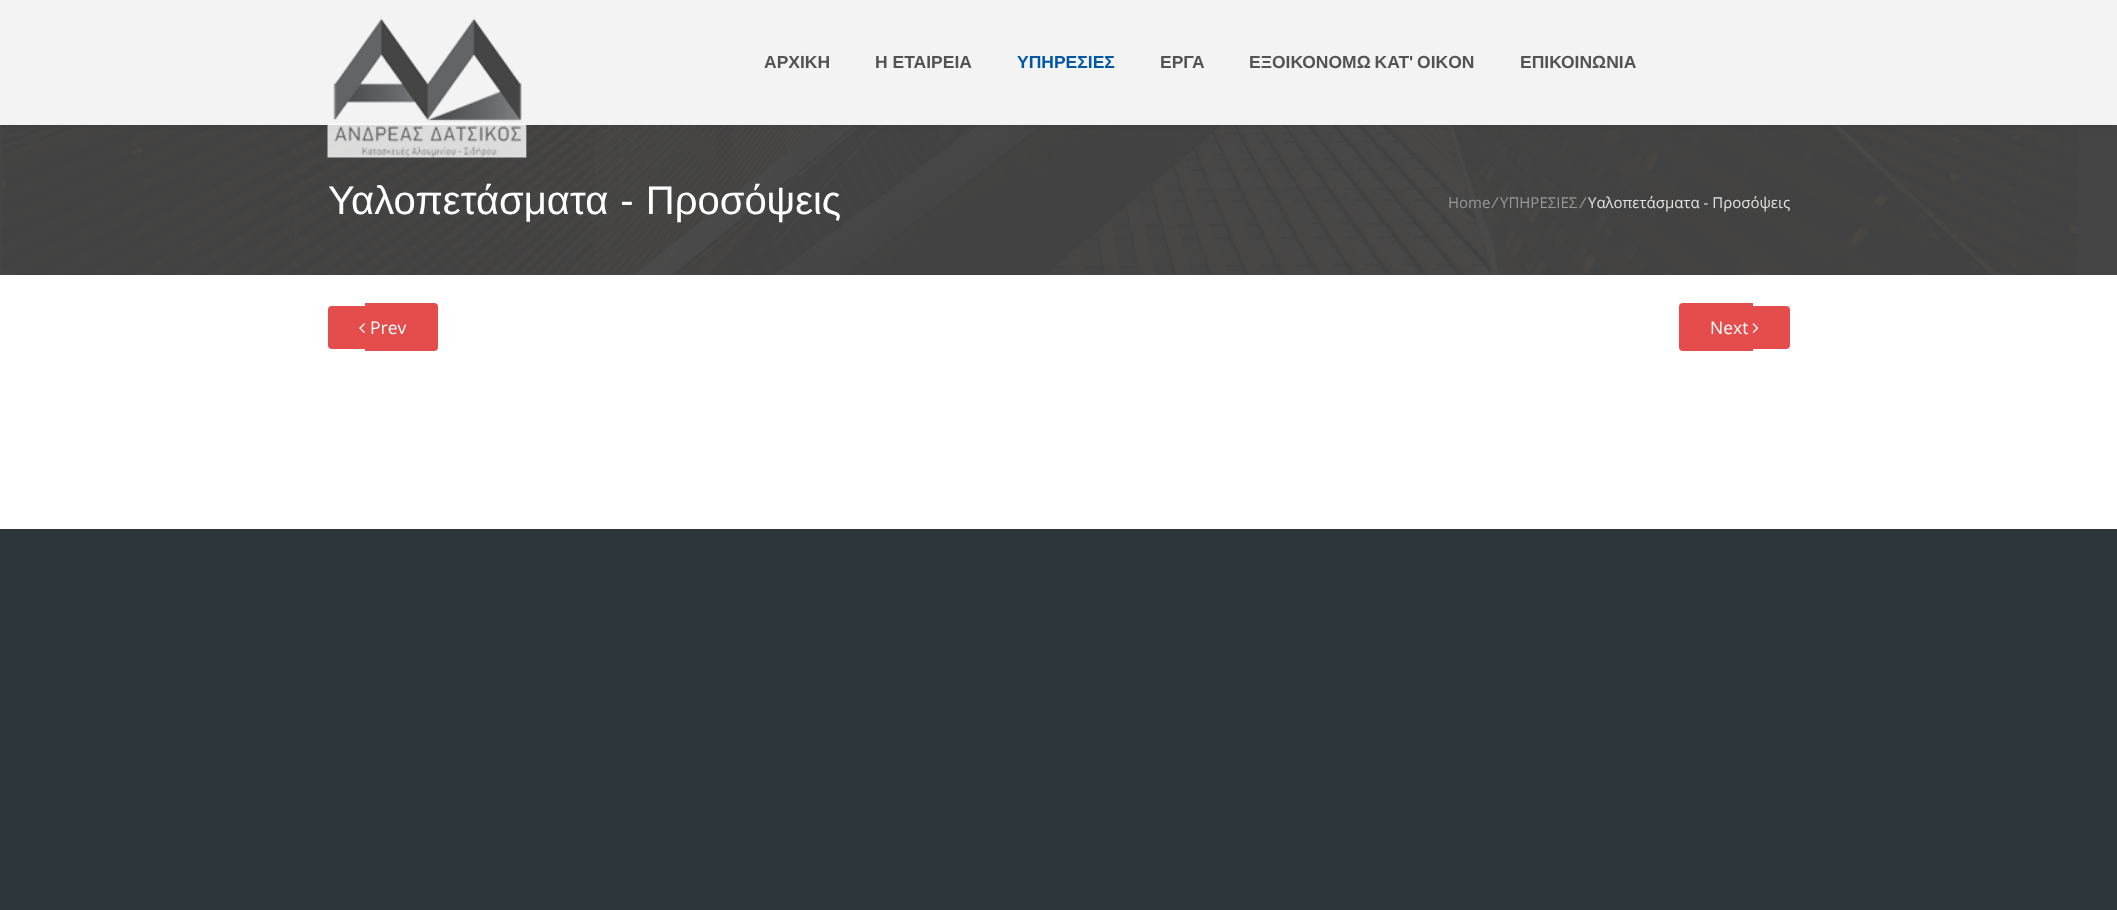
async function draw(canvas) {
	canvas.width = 2117;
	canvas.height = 910;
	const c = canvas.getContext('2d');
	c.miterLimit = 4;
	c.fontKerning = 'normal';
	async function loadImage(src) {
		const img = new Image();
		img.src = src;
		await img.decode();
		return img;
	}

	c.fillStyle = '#fff';
	c.fillRect(0, 0, 2117, 910);
	c.fillStyle = '#454545';
	c.fillRect(0, 125, 2117, 150);
	c.drawImage(await loadImage('img2.png'), 2, 125, 2075, 150);
	c.fillStyle = '#0000001a';
	c.filter = 'blur(2px)';
	c.beginPath();
	c.rect(0, 1, 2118, 125);
	c.fill();
	c.filter = 'none';
	c.fillStyle = '#f3f3f3';
	c.fillRect(0, 0, 2117, 125);
	c.drawImage(await loadImage('img1.png'), 327, 17, 200, 141);
	c.font = 'bold 17.5px Liberation Sans';
	c.fillStyle = '#535353';
	c.fillText('ΑΡΧΙΚΗ', 764, 68);
	c.fillText('H ΕΤΑΙΡΕΙΑ', 875, 68);
	c.fillStyle = '#0056a7';
	c.fillText('ΥΠΗΡΕΣΙΕΣ', 1017, 68);
	c.fillStyle = '#535353';
	c.fillText('ΕΡΓΑ', 1160, 68);
	c.wordSpacing = '-1px';
	c.fillText('ΕΞΟΙΚΟΝΟΜΩ ΚΑΤ\' ΟΙΚOΝ', 1249, 68);
	c.wordSpacing = '0px';
	c.fillText('ΕΠΙΚΟΙΝΩΝΙΑ', 1520, 68);
	c.wordSpacing = '1px';
	c.font = '40px Liberation Sans';
	c.fillStyle = '#fff';
	c.fillText('Υαλοπετάσματα - Προσόψεις', 328, 214);
	c.wordSpacing = '0px';
	c.font = '15px Open Sans';
	c.fillStyle = '#999';
	c.fillText('Home', 1448, 208);
	c.font = 'italic 15px Open Sans';
	c.fillText('/', 1492, 208);
	c.font = '15px Open Sans';
	c.fillText('ΥΠΗΡΕΣΙΕΣ', 1500, 208);
	c.font = 'italic 15px Open Sans';
	c.fillText('/', 1580, 208);
	c.font = '15px Open Sans';
	c.fillStyle = '#e3e3e3';
	c.fillText('Υαλοπετάσματα - Προσόψεις', 1588, 208);
	c.fillStyle = '#e54c4c';
	c.beginPath();
	c.roundRect(328, 306, 37, 43, [4, 0, 0, 4]);
	c.fill();
	c.beginPath();
	c.roundRect(365, 303, 73, 48, [0, 4, 4, 0]);
	c.fill();
	c.drawImage(await loadImage('img3.png'), 359, 323, 6, 10);
	c.font = '17.5px Open Sans';
	c.fillStyle = '#fff';
	c.fillText('Prev', 370, 334);
	c.fillStyle = '#e54c4c';
	c.beginPath();
	c.roundRect(1679, 303, 74, 48, [4, 0, 0, 4]);
	c.fill();
	c.beginPath();
	c.roundRect(1753, 306, 37, 43, [0, 4, 4, 0]);
	c.fill();
	c.fillStyle = '#fff';
	c.fillText('Next', 1710, 334);
	c.drawImage(await loadImage('img4.png'), 1752, 323, 7, 10);
	c.fillStyle = '#2d363a';
	c.fillRect(0, 529, 2117, 381);
}

draw(document.querySelector('canvas'));
